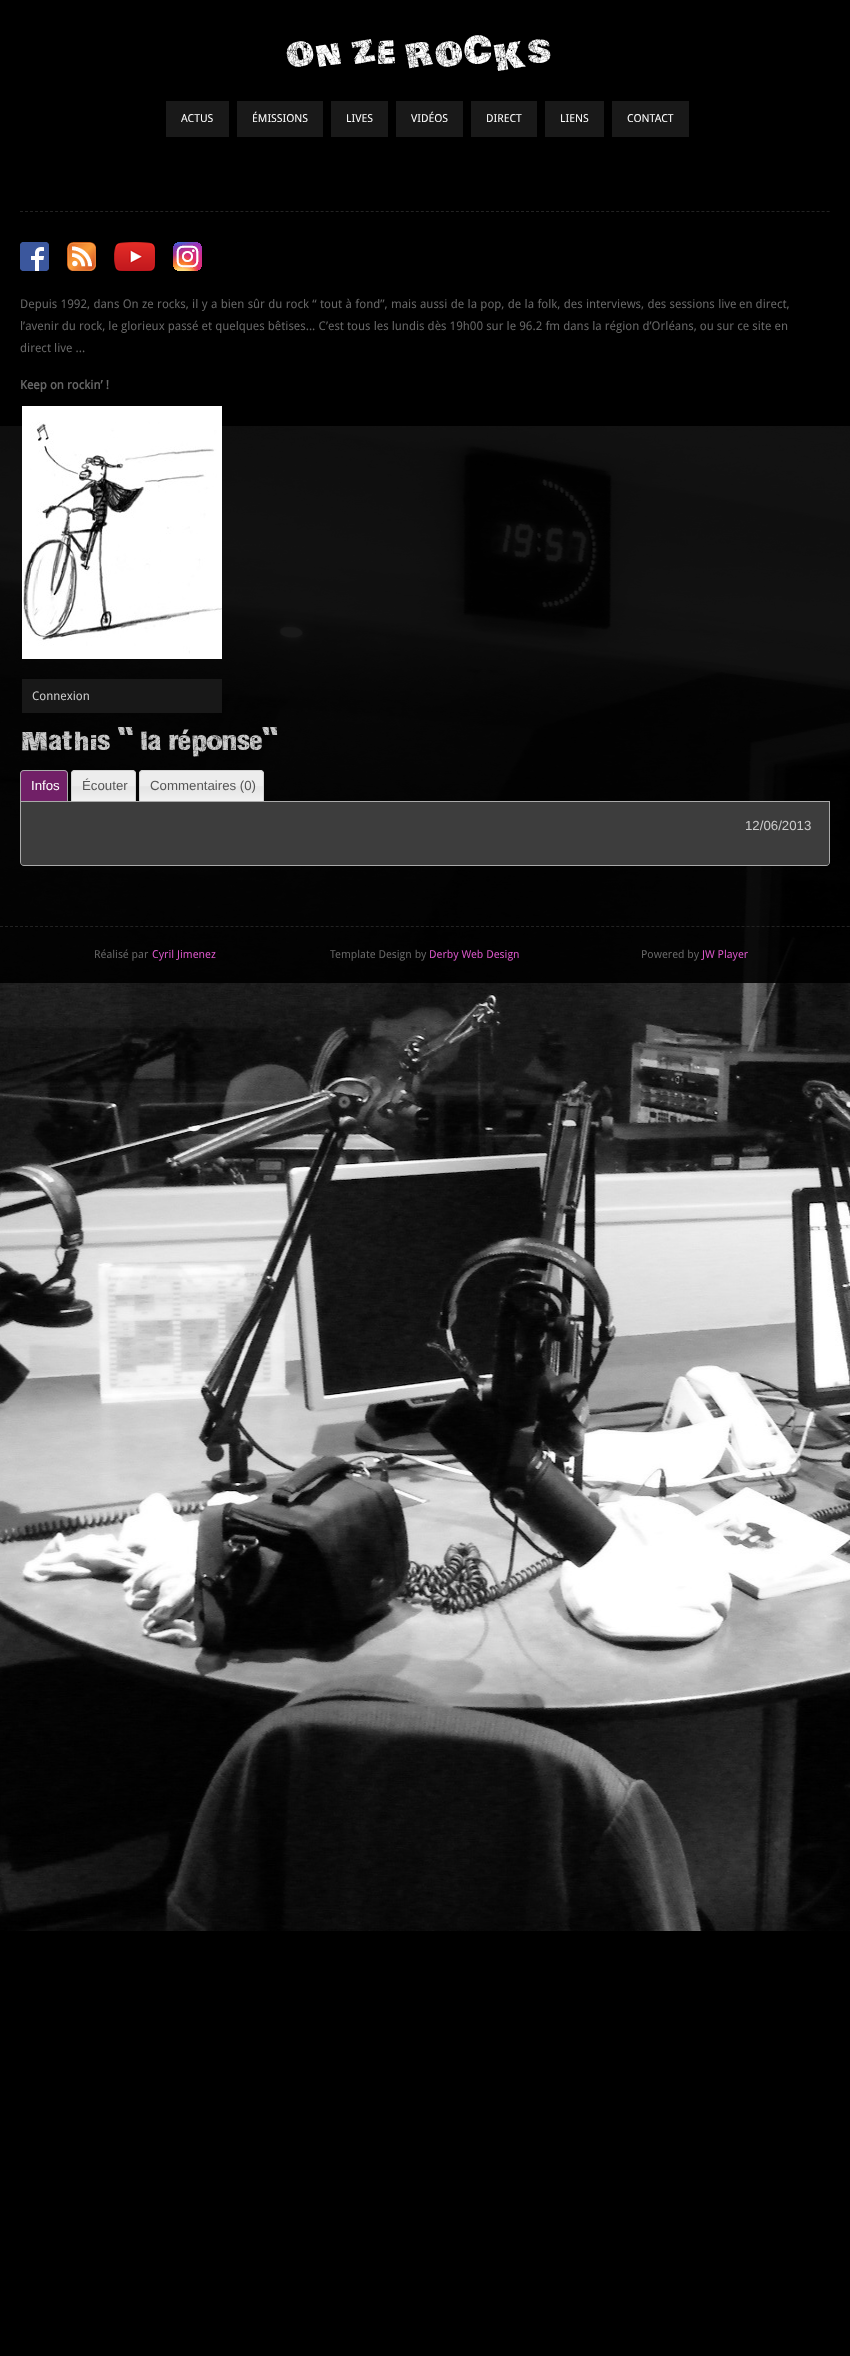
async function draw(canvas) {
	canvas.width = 850;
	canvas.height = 2356;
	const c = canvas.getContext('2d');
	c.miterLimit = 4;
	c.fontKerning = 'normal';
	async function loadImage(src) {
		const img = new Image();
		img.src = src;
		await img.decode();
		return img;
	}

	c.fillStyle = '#000';
	c.fillRect(0, 0, 850, 2356);
	c.drawImage(await loadImage('img1.png'), 0, 426, 850, 1505);
	c.letterSpacing = '-1px';
	c.font = '36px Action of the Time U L';
	c.fillStyle = '#fff';
	c.fillText('ON ZE ROCKS', 285, 64);
	c.fillStyle = '#191919';
	c.fillRect(166, 101, 63, 36);
	c.letterSpacing = '0px';
	c.font = '11px Droid Sans';
	c.fillStyle = '#fff';
	c.fillText('ACTUS', 181, 122);
	c.fillStyle = '#191919';
	c.fillRect(237, 101, 86, 36);
	c.fillStyle = '#fff';
	c.fillText('ÉMISSIONS', 252, 122);
	c.fillStyle = '#191919';
	c.fillRect(331, 101, 57, 36);
	c.fillStyle = '#fff';
	c.fillText('LIVES', 346, 122);
	c.fillStyle = '#191919';
	c.fillRect(396, 101, 67, 36);
	c.fillStyle = '#fff';
	c.fillText('VIDÉOS', 411, 122);
	c.fillStyle = '#191919';
	c.fillRect(471, 101, 66, 36);
	c.fillStyle = '#fff';
	c.fillText('DIRECT', 486, 122);
	c.fillStyle = '#191919';
	c.fillRect(545, 101, 59, 36);
	c.fillStyle = '#fff';
	c.fillText('LIENS', 560, 122);
	c.fillStyle = '#191919';
	c.fillRect(612, 101, 77, 36);
	c.fillStyle = '#fff';
	c.fillText('CONTACT', 627, 122);
	c.fillStyle = '#000000e6';
	c.fillRect(0, 426, 850, 500);
	c.beginPath();
	c.moveTo(20, 211.5);
	c.lineTo(830, 211.5);
	c.strokeStyle = '#222';
	c.setLineDash([3, 2.01]);
	c.stroke();
	c.drawImage(await loadImage('img2.png'), 20, 242, 29, 29);
	c.drawImage(await loadImage('img3.png'), 67, 242, 29, 29);
	c.drawImage(await loadImage('img4.png'), 114, 242, 41, 29);
	c.drawImage(await loadImage('img5.png'), 173, 242, 29, 29);
	c.wordSpacing = '0.25px';
	c.font = '12px Droid Sans';
	c.fillStyle = '#666';
	c.fillText('Depuis 1992, dans On ze rocks, il y a bien sûr du rock “ tout à fond”, mais aussi de la pop, de la folk, des interviews, des sessions live', 20, 308);
	c.wordSpacing = '0px';
	for (const [text, x, y] of [
		['en direct,', 739, 308],
		['l’avenir du rock, le glorieux passé et quelques bêtises... C’est tous les lundis dès 19h00 sur le 96.2 fm dans la région d’Orléans, ou sur ce site en', 20, 330],
		['direct live ...', 20, 352],
	]) {
		c.fillText(text, x, y);
	}
	c.font = 'bold 12px Droid Sans';
	c.fillText('Keep on rockin’ !', 20, 389);
	c.drawImage(await loadImage('img6.png'), 22, 406, 200, 253);
	c.fillStyle = '#181818';
	c.fillRect(22, 679, 200, 34);
	c.font = '12px Droid Sans';
	c.fillStyle = '#ccc';
	c.fillText('Connexion', 32, 700);
	c.letterSpacing = '-1px';
	c.font = '34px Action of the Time';
	c.fillText('Mathis " la réponse"', 20, 750);
	c.fillStyle = '#aaa';
	c.fillRect(20, 801, 810, 1);
	c.fillStyle = '#712067';
	c.beginPath();
	c.roundRect(20, 770, 48, 31, [4, 4, 0, 0]);
	c.fill();
	c.fillStyle = '#aaa';
	c.beginPath();
	c.moveTo(24, 770);
	c.lineTo(64, 770);
	c.bezierCurveTo(66, 770, 68, 772, 68, 774);
	c.lineTo(68, 801);
	c.lineTo(20, 801);
	c.lineTo(20, 774);
	c.bezierCurveTo(20, 772, 22, 770, 24, 770);
	c.closePath();
	c.moveTo(24, 771);
	c.lineTo(64, 771);
	c.bezierCurveTo(66, 771, 67, 772, 67, 774);
	c.lineTo(67, 801);
	c.lineTo(21, 801);
	c.lineTo(21, 774);
	c.bezierCurveTo(21, 772, 22, 771, 24, 771);
	c.closePath();
	c.fill('evenodd');
	c.letterSpacing = '0px';
	c.font = '13.25px Liberation Sans';
	c.fillStyle = '#fff';
	c.fillText('Infos', 31, 790);
	c.drawImage(await loadImage('img7.png'), 71, 770, 65, 31);
	c.fillStyle = '#d3d3d3';
	c.beginPath();
	c.moveTo(75, 770);
	c.lineTo(132, 770);
	c.bezierCurveTo(134, 770, 136, 772, 136, 774);
	c.lineTo(136, 801);
	c.lineTo(71, 801);
	c.lineTo(71, 774);
	c.bezierCurveTo(71, 772, 73, 770, 75, 770);
	c.closePath();
	c.moveTo(75, 771);
	c.lineTo(132, 771);
	c.bezierCurveTo(134, 771, 135, 772, 135, 774);
	c.lineTo(135, 801);
	c.lineTo(72, 801);
	c.lineTo(72, 774);
	c.bezierCurveTo(72, 772, 73, 771, 75, 771);
	c.closePath();
	c.fill('evenodd');
	c.fillStyle = '#555';
	c.fillText('Écouter', 82, 790);
	c.drawImage(await loadImage('img8.png'), 139, 770, 125, 31);
	c.fillStyle = '#d3d3d3';
	c.beginPath();
	c.moveTo(143, 770);
	c.lineTo(260, 770);
	c.bezierCurveTo(262, 770, 264, 772, 264, 774);
	c.lineTo(264, 801);
	c.lineTo(139, 801);
	c.lineTo(139, 774);
	c.bezierCurveTo(139, 772, 141, 770, 143, 770);
	c.closePath();
	c.moveTo(143, 771);
	c.lineTo(260, 771);
	c.bezierCurveTo(262, 771, 263, 772, 263, 774);
	c.lineTo(263, 801);
	c.lineTo(140, 801);
	c.lineTo(140, 774);
	c.bezierCurveTo(140, 772, 141, 771, 143, 771);
	c.closePath();
	c.fill('evenodd');
	c.fillStyle = '#555';
	c.fillText('Commentaires (0)', 150, 790);
	c.fillStyle = '#3d3d3d';
	c.beginPath();
	c.roundRect(21, 802, 808, 63, [0, 0, 3, 3]);
	c.fill();
	c.fillStyle = '#aaa';
	c.beginPath();
	c.moveTo(20, 802);
	c.lineTo(830, 802);
	c.lineTo(830, 862);
	c.bezierCurveTo(830, 864, 828, 866, 826, 866);
	c.lineTo(24, 866);
	c.bezierCurveTo(22, 866, 20, 864, 20, 862);
	c.closePath();
	c.moveTo(21, 802);
	c.lineTo(829, 802);
	c.lineTo(829, 862);
	c.bezierCurveTo(829, 864, 828, 865, 826, 865);
	c.lineTo(24, 865);
	c.bezierCurveTo(22, 865, 21, 864, 21, 862);
	c.closePath();
	c.fill('evenodd');
	c.fillStyle = '#ccc';
	c.fillText('12/06/2013', 745, 830);
	c.fillStyle = '#000000e6';
	c.fillRect(0, 926, 850, 57);
	c.beginPath();
	c.moveTo(0, 926.5);
	c.lineTo(850, 926.5);
	c.stroke();
	c.font = '11px Droid Sans';
	c.fillStyle = '#666';
	c.fillText('Réalisé par', 94, 958);
	c.fillStyle = '#d856c7';
	c.fillText('Cyril Jimenez', 152, 958);
	c.fillStyle = '#666';
	c.fillText('Template Design by', 330, 958);
	c.fillStyle = '#d856c7';
	c.fillText('Derby Web Design', 429, 958);
	c.fillStyle = '#666';
	c.fillText('Powered by', 641, 958);
	c.fillStyle = '#d856c7';
	c.fillText('JW Player', 702, 958);
}

draw(document.querySelector('canvas'));
